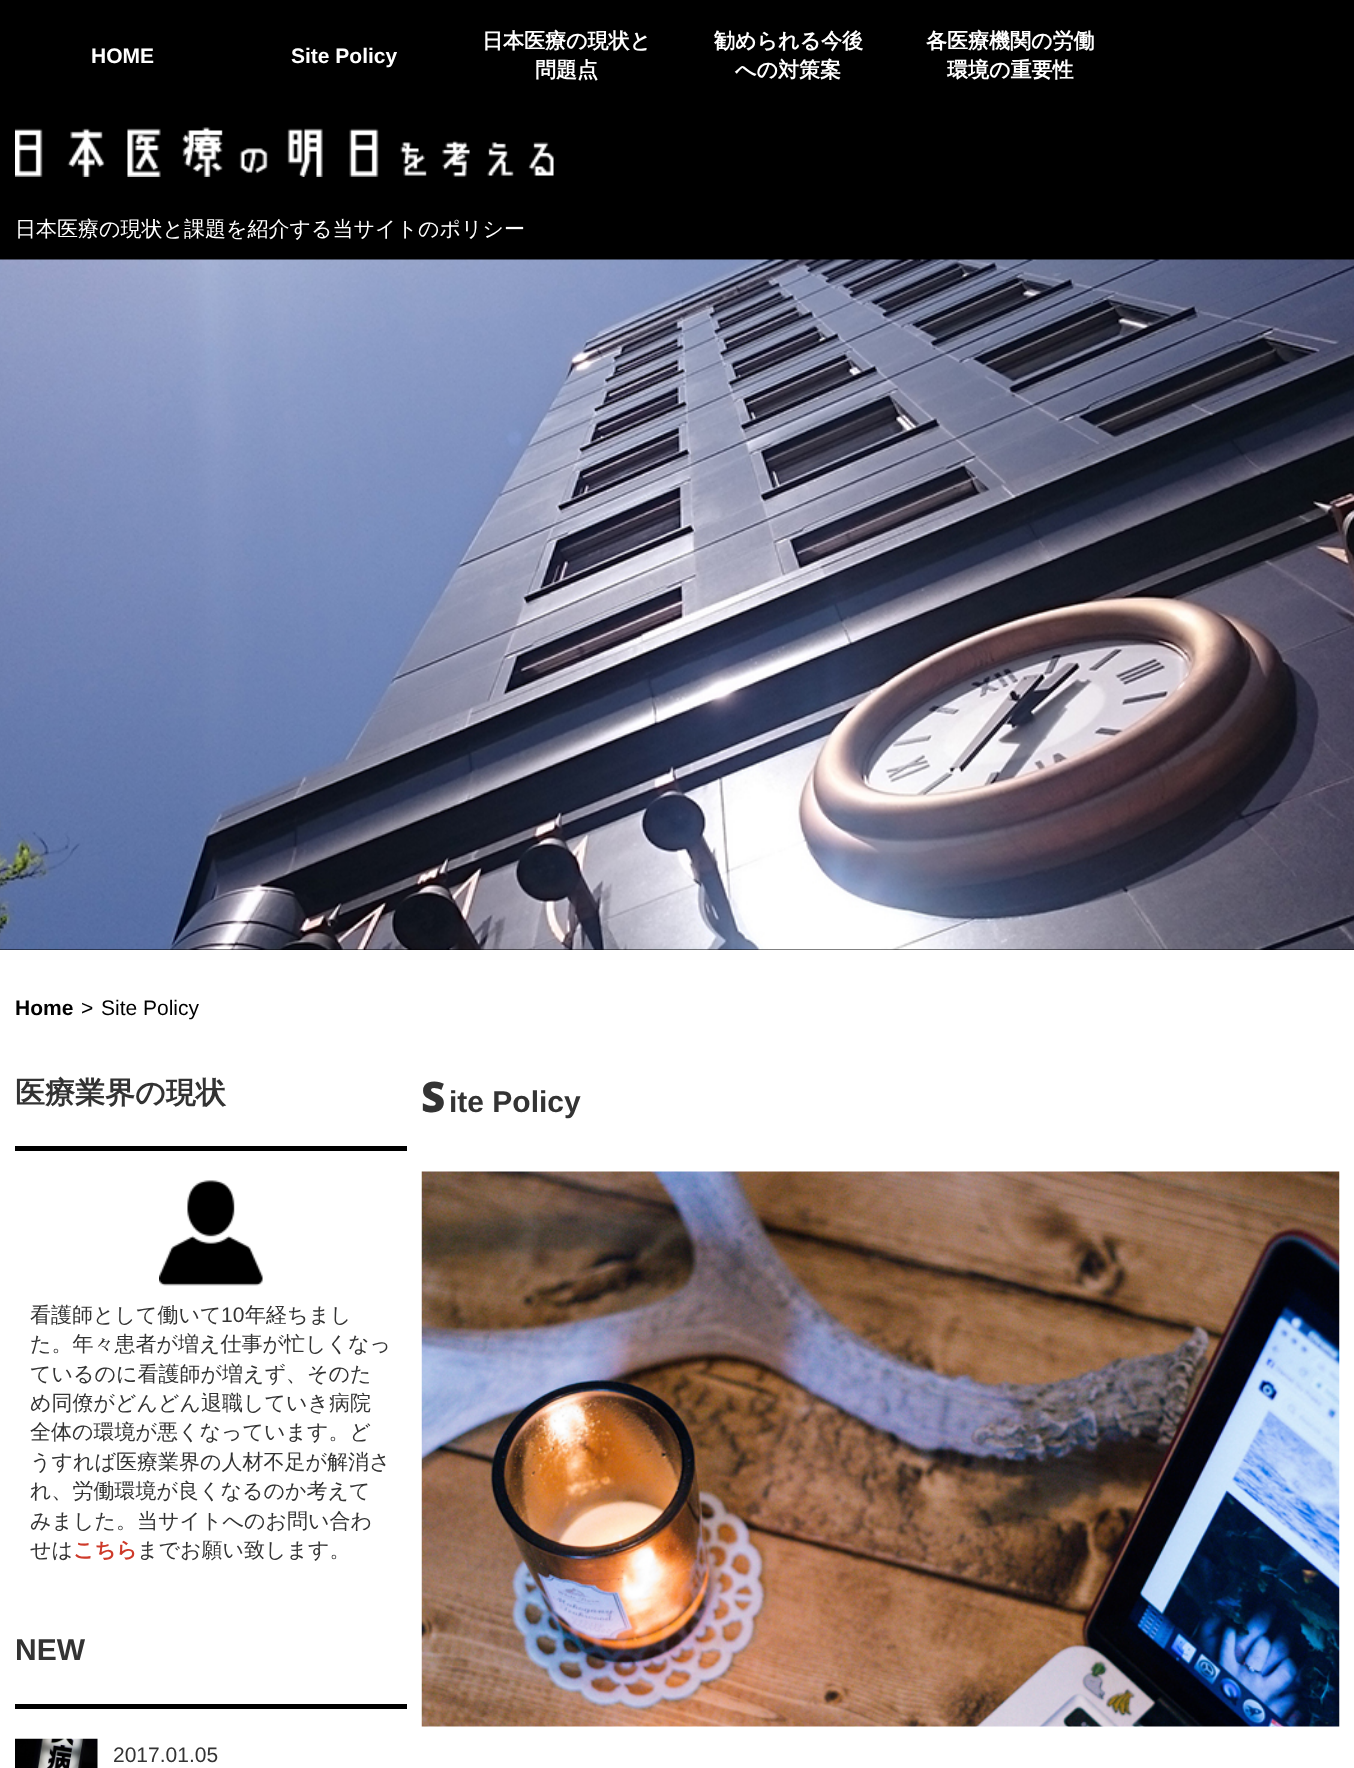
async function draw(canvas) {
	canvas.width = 1354;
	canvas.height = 1768;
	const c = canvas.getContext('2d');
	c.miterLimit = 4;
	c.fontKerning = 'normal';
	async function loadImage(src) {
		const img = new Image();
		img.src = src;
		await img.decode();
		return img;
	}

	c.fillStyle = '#fff';
	c.fillRect(0, 0, 1354, 1768);
	c.fillStyle = '#000';
	c.fillRect(0, 0, 1354, 950);
	c.font = 'bold 21px Liberation Sans';
	c.fillStyle = '#fff';
	c.fillText('HOME', 91, 63);
	c.fillText('Site Policy', 291, 63);
	c.font = 'bold 21px WenQuanYi Zen Hei';
	for (const [text, x, y] of [
		['日本医療の現状と', 482, 48],
		['問題点', 535, 77],
		['勧められる今後', 714, 48],
		['への対策案', 735, 77],
		['各医療機関の労働', 926, 48],
		['環境の重要性', 947, 77],
	]) {
		c.fillText(text, x, y);
	}
	c.drawImage(await loadImage('img1.png'), 15, 127, 539, 50);
	c.font = '500 21px WenQuanYi Zen Hei';
	c.fillText('日本医療の現状と課題を紹介する当サイトのポリシー', 15, 236);
	c.drawImage(await loadImage('img2.png'), 0, 259, 1354, 691);
	c.font = 'bold 21px Liberation Sans';
	c.fillStyle = '#000';
	c.fillText('Home', 15, 1015);
	c.font = '21px Liberation Sans';
	c.fillText('>', 81, 1015);
	c.fillText('Site Policy', 101, 1015);
	c.fillRect(15, 1146, 392, 5);
	c.font = 'bold 30px WenQuanYi Zen Hei';
	c.fillStyle = '#333';
	c.fillText('医療業界の現状', 15, 1103);
	c.drawImage(await loadImage('img3.png'), 159, 1180, 104, 106);
	c.font = '500 21px WenQuanYi Zen Hei';
	c.fillText('看護師として働いて', 30, 1322);
	c.font = '21px Liberation Sans';
	c.fillText('10', 221, 1322);
	c.font = '500 21px WenQuanYi Zen Hei';
	for (const [text, x, y] of [
		['年経ちまし', 245, 1322],
		['た。年々患者が増え仕事が忙しくなっ', 30, 1351],
		['ているのに看護師が増えず、そのた', 30, 1381],
		['め同僚がどんどん退職していき病院', 30, 1410],
		['全体の環境が悪くなっています。ど', 30, 1439],
		['うすれば医療業界の人材不足が解消さ', 30, 1469],
		['れ、労働環境が良くなるのか考えて', 30, 1498],
		['みました。当サイトへのお問い合わ', 30, 1528],
		['せは', 30, 1557],
	]) {
		c.fillText(text, x, y);
	}
	c.font = 'bold 21px WenQuanYi Zen Hei';
	c.fillStyle = '#ce3929';
	c.fillText('こちら', 73, 1557);
	c.font = '500 21px WenQuanYi Zen Hei';
	c.fillStyle = '#333';
	c.fillText('までお願い致します。', 137, 1557);
	c.fillStyle = '#000';
	c.fillRect(15, 1704, 392, 5);
	c.font = 'bold 30px Liberation Sans';
	c.fillStyle = '#333';
	c.fillText('NEW', 15, 1660);
	c.drawImage(await loadImage('img4.png'), 15, 1738, 83, 30);
	c.font = '21px Liberation Sans';
	c.fillText('2017.01.05', 113, 1762);
	c.font = '900 42px Noto Sans';
	c.fillText('S', 421, 1112);
	c.font = 'bold 30px Liberation Sans';
	c.fillText('ite Policy', 449, 1112);
	c.drawImage(await loadImage('img5.png'), 421, 1171, 919, 556);
}

draw(document.querySelector('canvas'));
